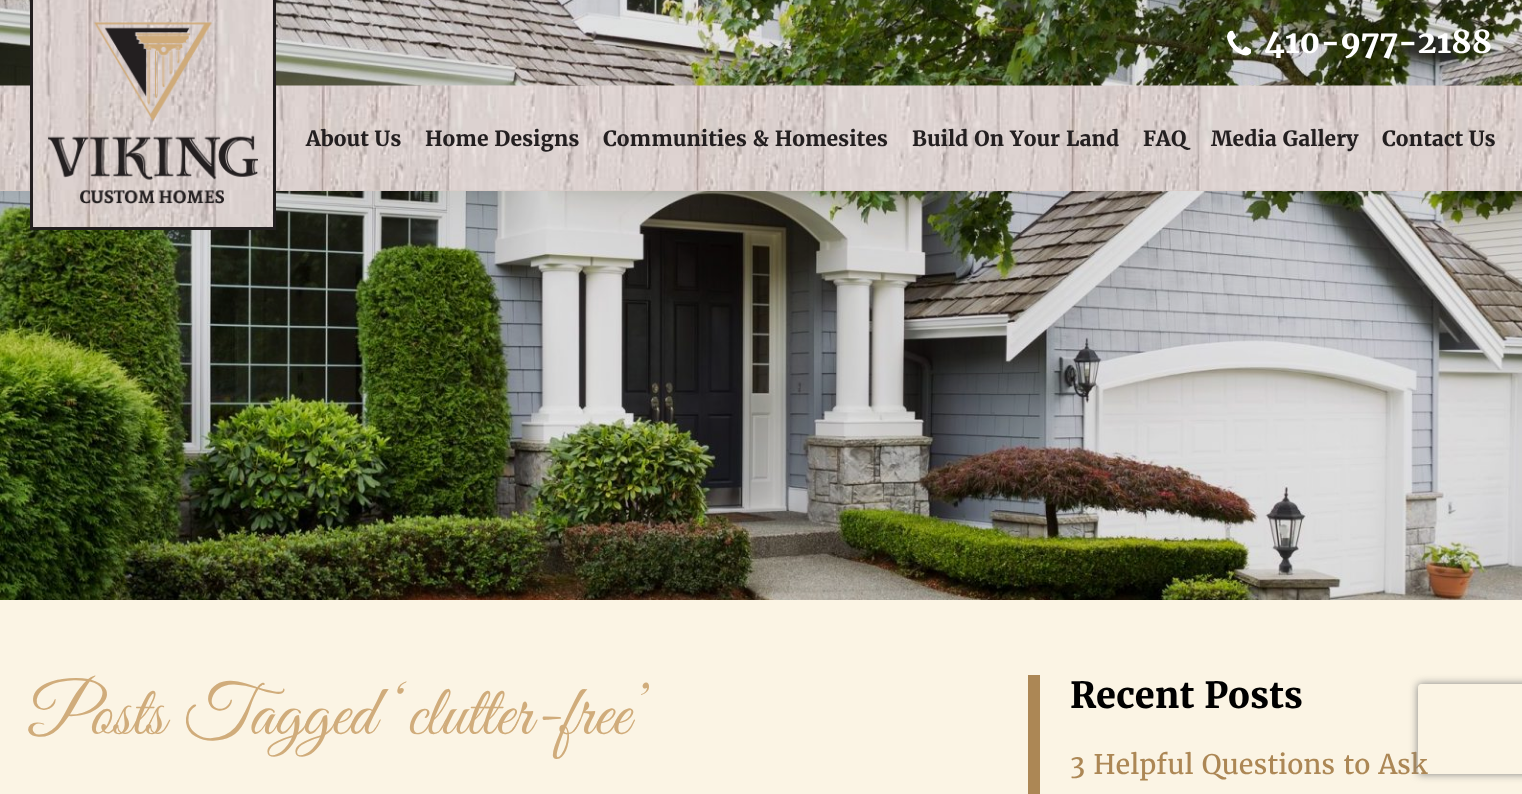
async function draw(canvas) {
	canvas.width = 1522;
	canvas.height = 794;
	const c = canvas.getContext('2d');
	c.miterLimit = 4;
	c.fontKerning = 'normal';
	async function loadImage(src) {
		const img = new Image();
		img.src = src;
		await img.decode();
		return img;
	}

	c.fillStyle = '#fbf4e4';
	c.fillRect(0, 0, 1522, 794);
	c.drawImage(await loadImage('img1.png'), 0, 0, 1522, 600);
	c.fillStyle = '#d6c8c3';
	c.fillRect(0, 190, 1522, 1);
	c.drawImage(await loadImage('img5.png'), 0, 85, 1522, 106);
	c.drawImage(await loadImage('img2.png'), 33, 0, 240, 227);
	for (const [x, y, w, h, color] of [
		[273, 0, 3, 230, '#231f20'],
		[30, 227, 246, 3, '#231f20'],
		[30, 0, 3, 230, '#231f20'],
	]) {
		c.fillStyle = color;
		c.fillRect(x, y, w, h);
	}
	c.drawImage(await loadImage('img3.png'), 48, 22, 210, 182);
	c.drawImage(await loadImage('img4.png'), 1227, 30, 24, 26);
	c.font = 'bold 31.5px Merriweather';
	c.fillStyle = '#fff';
	c.fillText('410-977-2188', 1264, 53);
	c.font = 'bold 21px Merriweather';
	c.fillStyle = '#231f20';
	for (const [text, x, y] of [
		['About Us', 306, 146],
		['Home Designs', 425, 146],
		['Communities & Homesites', 603, 146],
		['Build On Your Land', 912, 146],
		['FAQ', 1143, 146],
		['Media Gallery', 1211, 146],
		['Contact Us', 1382, 146],
	]) {
		c.fillText(text, x, y);
	}
	c.font = '72px Great Vibes';
	c.fillStyle = '#d0ac7b';
	c.fillText('Posts Tagged ‘clutter-free’', 30, 734);
	c.fillStyle = '#ac8755';
	c.fillRect(1028, 675, 12, 119);
	c.font = 'bold 36px Merriweather';
	c.fillStyle = '#000';
	c.fillText('Recent Posts', 1070, 708);
	c.font = '27px Merriweather';
	c.fillStyle = '#ac8755';
	c.fillText('3 Helpful Questions to Ask', 1070, 774);
	c.save();
	c.beginPath();
	c.moveTo(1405, 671);
	c.lineTo(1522, 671);
	c.lineTo(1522, 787);
	c.lineTo(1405, 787);
	c.closePath();
	c.moveTo(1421, 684);
	c.lineTo(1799, 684);
	c.bezierCurveTo(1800.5, 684, 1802, 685.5, 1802, 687);
	c.lineTo(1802, 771);
	c.bezierCurveTo(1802, 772.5, 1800.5, 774, 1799, 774);
	c.lineTo(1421, 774);
	c.bezierCurveTo(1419.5, 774, 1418, 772.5, 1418, 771);
	c.lineTo(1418, 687);
	c.bezierCurveTo(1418, 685.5, 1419.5, 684, 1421, 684);
	c.closePath();
	c.clip('evenodd');
	c.fillStyle = '#808080';
	c.filter = 'blur(4px)';
	c.beginPath();
	c.roundRect(1418, 684, 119, 90, 3);
	c.fill();
	c.filter = 'none';
	c.restore();
}

draw(document.querySelector('canvas'));
